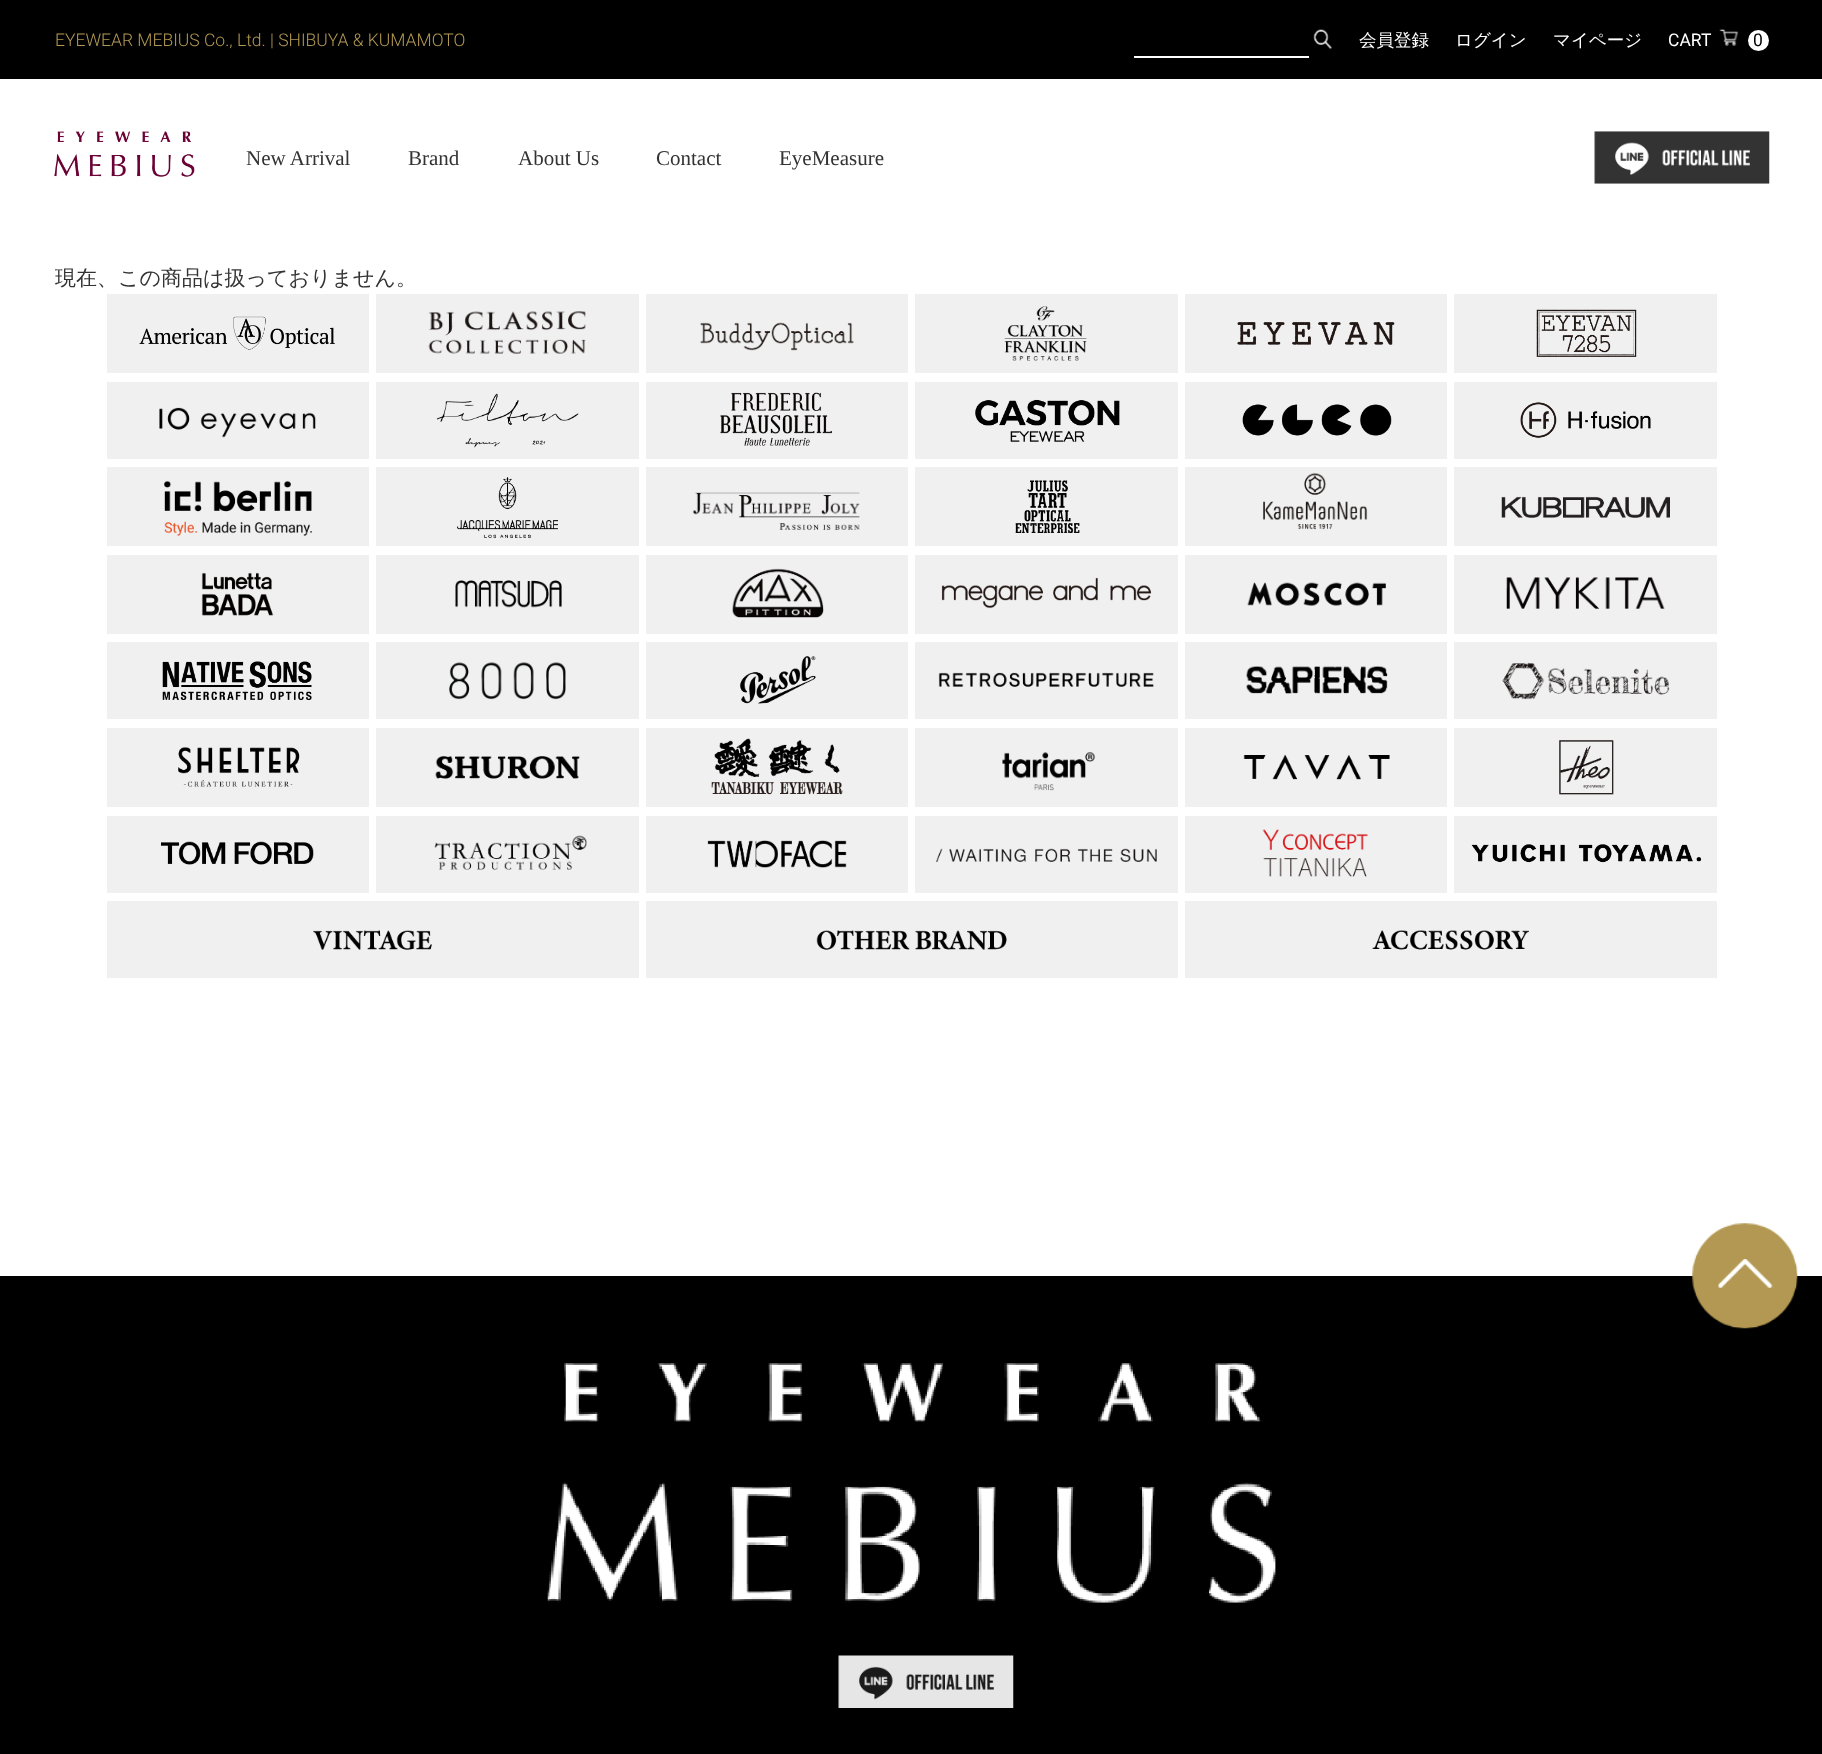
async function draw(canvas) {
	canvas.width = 1822;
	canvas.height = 1754;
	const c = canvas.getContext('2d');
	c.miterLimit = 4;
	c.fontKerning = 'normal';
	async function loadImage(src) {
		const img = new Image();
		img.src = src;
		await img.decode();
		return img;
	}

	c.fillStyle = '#fff';
	c.fillRect(0, 0, 1822, 1754);
	c.fillStyle = '#000';
	c.fillRect(0, 0, 1822, 79);
	c.font = '300 17.5px Roboto';
	c.fillStyle = '#b29852';
	c.fillText('EYEWEAR MEBIUS Co., Ltd. | SHIBUYA & KUMAMOTO', 55, 46);
	c.drawImage(await loadImage('img1.png'), 1313, 29, 19, 20);
	c.fillStyle = '#fff';
	c.fillRect(1134, 56, 175, 2);
	c.font = '500 17.5px WenQuanYi Zen Hei';
	for (const [text, x, y] of [
		['会員登録', 1359, 46],
		['ログイン', 1455, 46],
		['マイページ', 1553, 46],
	]) {
		c.fillText(text, x, y);
	}
	c.font = '17.5px Roboto';
	c.fillText('CART', 1668, 46);
	c.drawImage(await loadImage('img2.png'), 1719, 29, 20, 17);
	c.beginPath();
	c.arc(1758.5, 40.5, 10.5, 0, 2 * Math.PI);
	c.fill();
	c.fillStyle = '#000';
	c.fillText('0', 1753, 46);
	c.drawImage(await loadImage('img3.png'), 54, 131, 141, 46);
	c.font = '21px Liberation Serif';
	c.fillStyle = '#333';
	for (const [text, x, y] of [
		['New Arrival', 246, 165],
		['Brand', 408, 165],
		['About Us', 518, 165],
		['Contact', 656, 165],
		['EyeMeasure', 779, 165],
	]) {
		c.fillText(text, x, y);
	}
	c.drawImage(await loadImage('img4.png'), 1594, 131, 176, 53);
	c.font = '500 21px WenQuanYi Zen Hei';
	c.fillText('現在、この商品は扱っておりません。', 55, 285);
	c.fillStyle = '#f0f0f0';
	c.fillRect(107, 294, 262, 79);
	c.drawImage(await loadImage('img5.png'), 139, 316, 196, 34);
	c.fillRect(376, 294, 263, 79);
	c.drawImage(await loadImage('img6.png'), 428, 311, 158, 43);
	c.fillRect(646, 294, 262, 79);
	c.drawImage(await loadImage('img7.png'), 700, 322, 154, 29);
	c.fillRect(915, 294, 263, 79);
	c.drawImage(await loadImage('img8.png'), 1004, 306, 83, 55);
	c.fillRect(1185, 294, 262, 79);
	c.drawImage(await loadImage('img9.png'), 1237, 322, 158, 23);
	c.fillRect(1454, 294, 263, 79);
	c.drawImage(await loadImage('img10.png'), 1536, 309, 101, 48);
	c.fillRect(107, 382, 262, 77);
	c.drawImage(await loadImage('img11.png'), 159, 407, 157, 31);
	c.fillRect(376, 382, 263, 77);
	c.drawImage(await loadImage('img12.png'), 436, 393, 143, 55);
	c.fillRect(646, 382, 262, 77);
	c.drawImage(await loadImage('img13.png'), 720, 392, 112, 54);
	c.fillRect(915, 382, 263, 77);
	c.drawImage(await loadImage('img14.png'), 975, 399, 145, 43);
	c.fillRect(1185, 382, 262, 77);
	c.drawImage(await loadImage('img15.png'), 1242, 404, 150, 32);
	c.fillRect(1454, 382, 263, 77);
	c.drawImage(await loadImage('img16.png'), 1520, 402, 131, 36);
	c.fillRect(107, 467, 262, 79);
	c.drawImage(await loadImage('img17.png'), 164, 480, 148, 56);
	c.fillRect(376, 467, 263, 79);
	c.drawImage(await loadImage('img18.png'), 457, 477, 101, 62);
	c.fillRect(646, 467, 262, 79);
	c.drawImage(await loadImage('img19.png'), 692, 492, 168, 38);
	c.fillRect(915, 467, 263, 79);
	c.drawImage(await loadImage('img20.png'), 1015, 480, 65, 53);
	c.fillRect(1185, 467, 262, 79);
	c.drawImage(await loadImage('img21.png'), 1263, 472, 105, 58);
	c.fillRect(1454, 467, 263, 79);
	c.drawImage(await loadImage('img22.png'), 1501, 496, 169, 22);
	c.fillRect(107, 555, 262, 79);
	c.drawImage(await loadImage('img23.png'), 201, 572, 73, 44);
	c.fillRect(376, 555, 263, 79);
	c.drawImage(await loadImage('img24.png'), 455, 580, 107, 28);
	c.fillRect(646, 555, 262, 79);
	c.drawImage(await loadImage('img25.png'), 732, 568, 92, 50);
	c.fillRect(915, 555, 263, 79);
	c.drawImage(await loadImage('img26.png'), 941, 577, 211, 32);
	c.fillRect(1185, 555, 262, 79);
	c.drawImage(await loadImage('img27.png'), 1247, 582, 139, 24);
	c.fillRect(1454, 555, 263, 79);
	c.drawImage(await loadImage('img28.png'), 1506, 577, 159, 32);
	c.fillRect(107, 642, 262, 77);
	c.drawImage(await loadImage('img29.png'), 162, 661, 150, 39);
	c.fillRect(376, 642, 263, 77);
	c.drawImage(await loadImage('img30.png'), 449, 662, 117, 38);
	c.fillRect(646, 642, 262, 77);
	c.drawImage(await loadImage('img31.png'), 740, 656, 76, 48);
	c.fillRect(915, 642, 263, 77);
	c.drawImage(await loadImage('img32.png'), 938, 672, 216, 15);
	c.fillRect(1185, 642, 262, 77);
	c.drawImage(await loadImage('img33.png'), 1246, 666, 142, 28);
	c.fillRect(1454, 642, 263, 77);
	c.drawImage(await loadImage('img34.png'), 1502, 662, 168, 38);
	c.fillRect(107, 728, 262, 79);
	c.drawImage(await loadImage('img35.png'), 178, 747, 122, 40);
	c.fillRect(376, 728, 263, 79);
	c.drawImage(await loadImage('img36.png'), 435, 756, 145, 23);
	c.fillRect(646, 728, 262, 79);
	c.drawImage(await loadImage('img37.png'), 711, 738, 132, 57);
	c.fillRect(915, 728, 263, 79);
	c.drawImage(await loadImage('img38.png'), 1002, 752, 93, 39);
	c.fillRect(1185, 728, 262, 79);
	c.drawImage(await loadImage('img39.png'), 1243, 754, 147, 26);
	c.fillRect(1454, 728, 263, 79);
	c.drawImage(await loadImage('img40.png'), 1559, 740, 55, 55);
	c.fillRect(107, 816, 262, 77);
	c.drawImage(await loadImage('img41.png'), 161, 841, 153, 24);
	c.fillRect(376, 816, 263, 77);
	c.drawImage(await loadImage('img42.png'), 434, 835, 153, 35);
	c.fillRect(646, 816, 262, 77);
	c.drawImage(await loadImage('img43.png'), 707, 840, 140, 28);
	c.fillRect(915, 816, 263, 77);
	c.drawImage(await loadImage('img44.png'), 936, 848, 221, 14);
	c.fillRect(1185, 816, 262, 77);
	c.drawImage(await loadImage('img45.png'), 1262, 829, 106, 48);
	c.fillRect(1454, 816, 263, 77);
	c.drawImage(await loadImage('img46.png'), 1471, 844, 231, 19);
	c.fillRect(107, 901, 532, 77);
	c.drawImage(await loadImage('img47.png'), 313, 930, 119, 20);
	c.fillRect(646, 901, 532, 77);
	c.drawImage(await loadImage('img48.png'), 816, 930, 191, 20);
	c.fillRect(1185, 901, 532, 77);
	c.drawImage(await loadImage('img49.png'), 1372, 930, 157, 20);
	c.fillStyle = '#000';
	c.fillRect(0, 1276, 1822, 478);
	c.drawImage(await loadImage('img50.png'), 1692, 1223, 106, 106);
	c.drawImage(await loadImage('img51.png'), 547, 1363, 729, 240);
	c.drawImage(await loadImage('img52.png'), 838, 1655, 176, 53);
}

draw(document.querySelector('canvas'));
